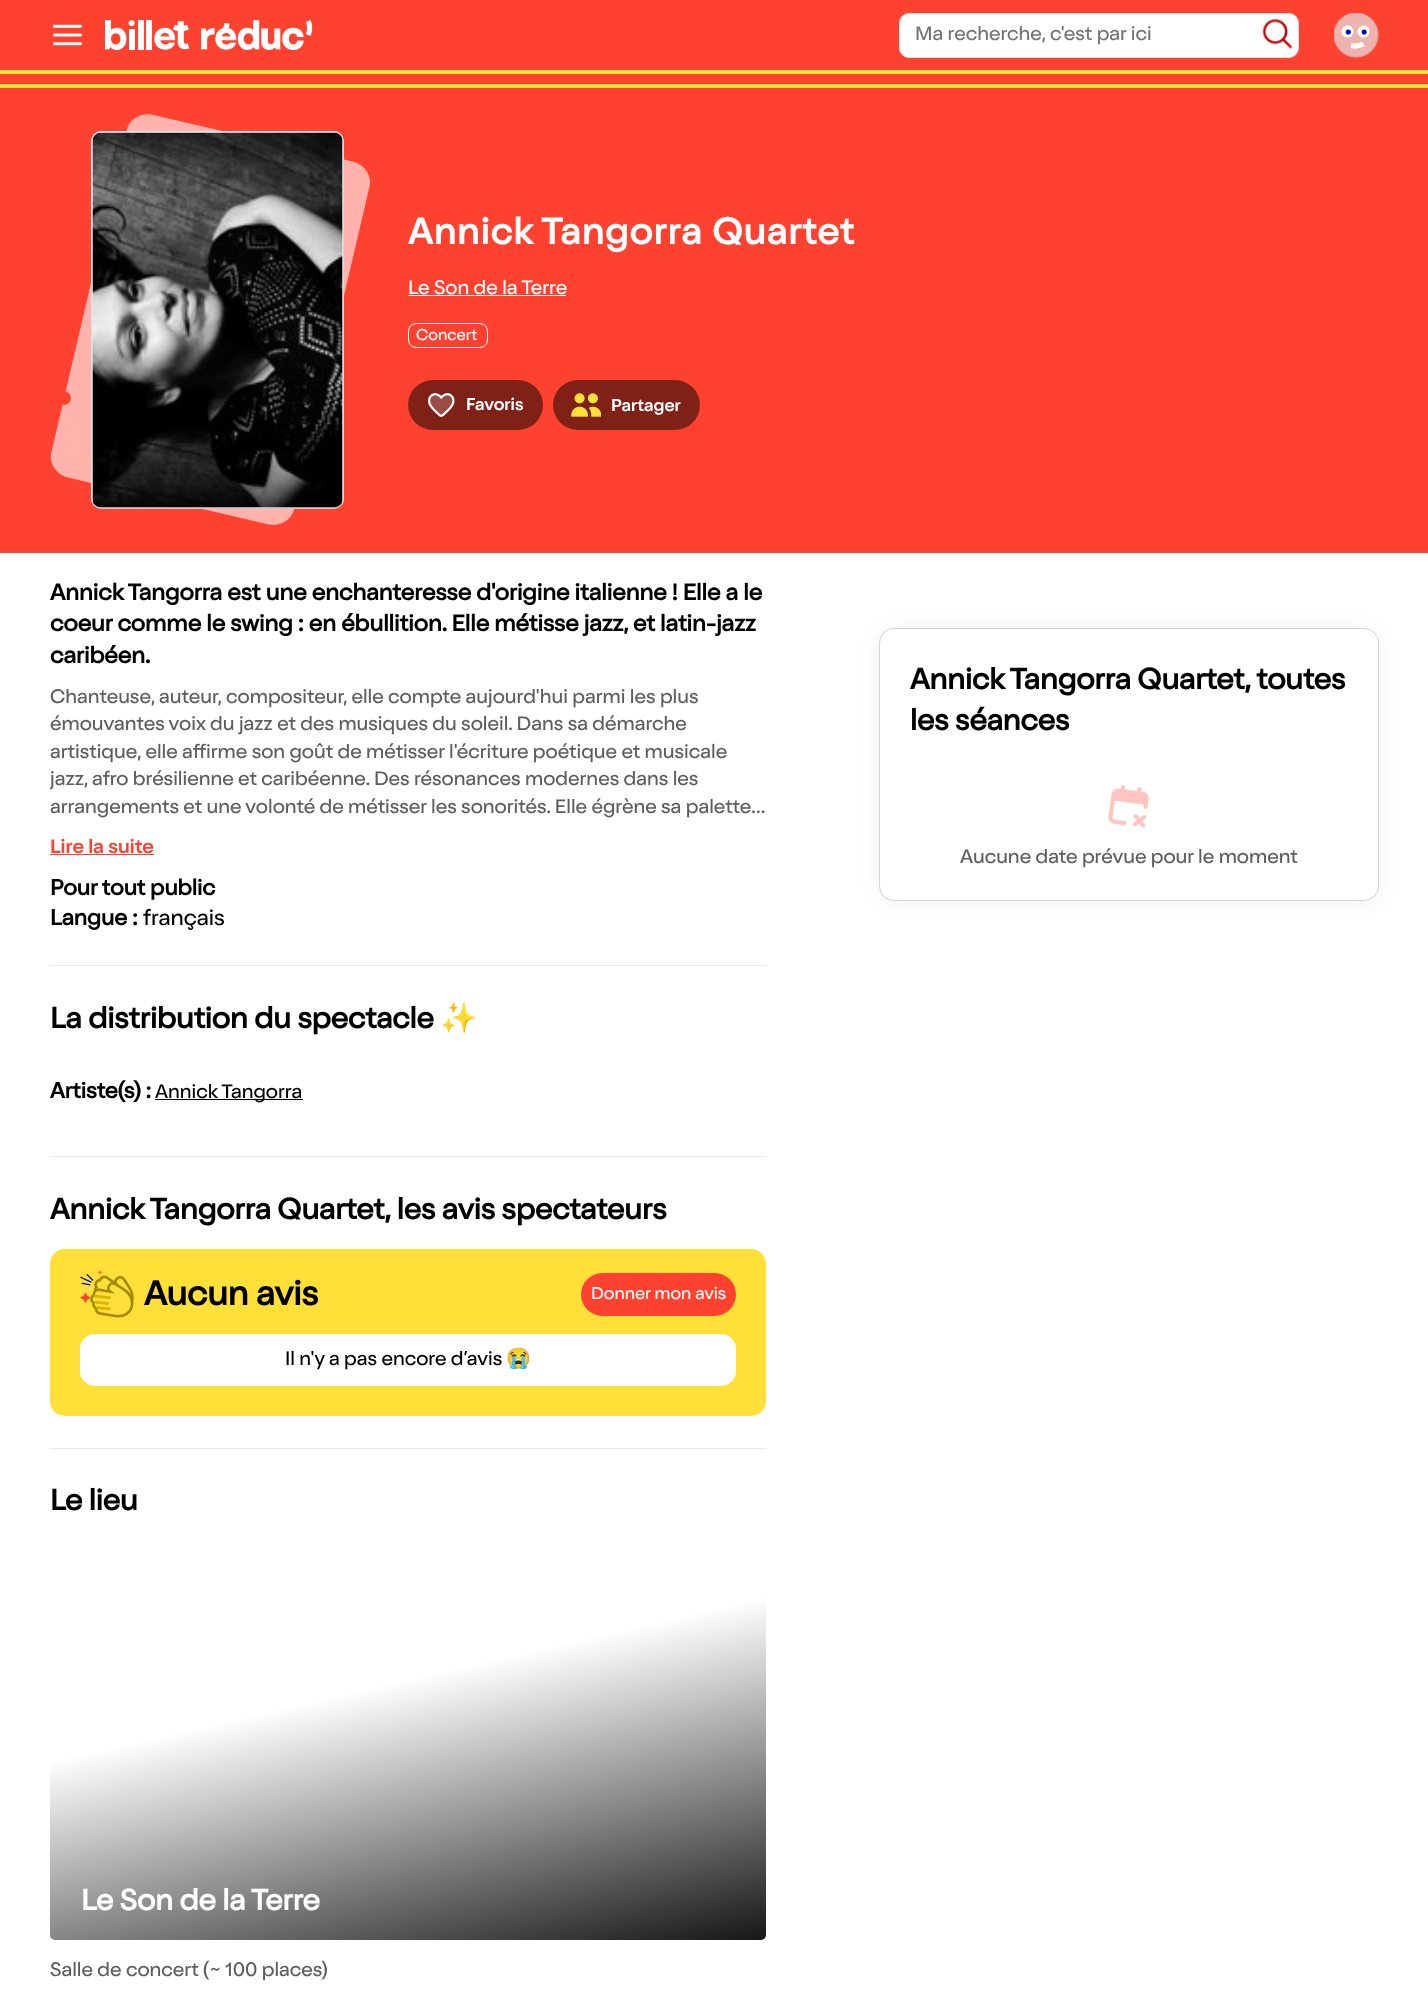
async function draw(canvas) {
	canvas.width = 1428;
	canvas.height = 1998;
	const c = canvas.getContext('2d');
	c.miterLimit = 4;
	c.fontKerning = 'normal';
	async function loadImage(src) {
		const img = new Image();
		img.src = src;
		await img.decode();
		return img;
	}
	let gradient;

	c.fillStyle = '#fff';
	c.fillRect(0, 0, 1428, 1998);
	c.fillStyle = '#ff4130';
	c.fillRect(0, 0, 1428, 70);
	c.fillStyle = '#ffe039';
	c.fillRect(0, 70, 1428, 4);
	c.drawImage(await loadImage('img1.png'), 52, 24, 31, 22);
	c.drawImage(await loadImage('img2.png'), 105, 20, 208, 30);
	c.fillStyle = '#fff';
	c.beginPath();
	c.roundRect(899.5, 13.5, 399, 44, 9.5);
	c.fill();
	c.strokeStyle = '#ddd';
	c.stroke();
	c.font = '20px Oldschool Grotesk';
	c.fillStyle = '#757575';
	c.fillText('Ma recherche, c\'est par ici', 915, 40);
	c.drawImage(await loadImage('img3.png'), 1262, 18, 31, 31);
	c.drawImage(await loadImage('img4.png'), 1334, 13, 45, 45);
	c.fillStyle = '#ff4130';
	c.fillRect(0, 74, 1428, 479);
	c.fillStyle = '#ffe039';
	c.fillRect(0, 84, 1428, 4);
	c.drawImage(await loadImage('img5.png'), 50, 114, 320, 411);
	c.fillStyle = '#fff';
	c.beginPath();
	c.roundRect(91, 131, 253, 378, 10);
	c.fill();
	c.beginPath();
	c.roundRect(91.5, 131.5, 252, 377, 9.5);
	c.strokeStyle = '#0000001a';
	c.stroke();
	c.drawImage(await loadImage('img6.png'), 91, 132, 253, 377);
	c.letterSpacing = '1.25px';
	c.font = 'bold 37.5px Oldschool Grotesk';
	c.fillText('Annick Tangorra Quartet', 408, 244);
	c.letterSpacing = '0px';
	c.font = '20px Oldschool Grotesk';
	c.fillText('Le Son de la Terre', 408, 294);
	c.fillRect(408, 295, 158, 1);
	c.beginPath();
	c.roundRect(408.5, 323.5, 79, 24, 7.5);
	c.strokeStyle = '#fff';
	c.stroke();
	c.font = '16px Oldschool Grotesk';
	c.fillText('Concert', 416, 340);
	c.fillStyle = '#802118';
	c.beginPath();
	c.roundRect(408, 380, 135, 50, 25);
	c.fill();
	c.drawImage(await loadImage('img7.png'), 428, 393, 27, 24);
	c.font = '500 17.5px Oldschool Grotesk';
	c.fillStyle = '#fff';
	c.fillText('Favoris', 466, 410);
	c.fillStyle = '#802118';
	c.beginPath();
	c.roundRect(553, 380, 147, 50, 25);
	c.fill();
	c.drawImage(await loadImage('img8.png'), 571, 393, 30, 24);
	c.fillStyle = '#fff';
	c.fillText('Partager', 611, 411);
	c.font = 'bold 23.4px Oldschool Grotesk';
	c.fillStyle = '#000';
	for (const [text, x, y] of [
		['Annick Tangorra est une enchanteresse d\'origine italienne ! Elle a le', 50, 600],
		['coeur comme le swing : en ébullition. Elle métisse jazz, et latin-jazz', 50, 631],
		['caribéen.', 50, 663],
	]) {
		c.fillText(text, x, y);
	}
	c.font = '20px Oldschool Grotesk';
	c.fillStyle = '#5e5e5e';
	for (const [text, x, y] of [
		['Chanteuse, auteur, compositeur, elle compte aujourd\'hui parmi les plus', 50, 703],
		['émouvantes voix du jazz et des musiques du soleil. Dans sa démarche', 50, 730],
		['artistique, elle affirme son goût de métisser l\'écriture poétique et musicale', 50, 758],
	]) {
		c.fillText(text, x, y);
	}
	c.save();
	c.beginPath();
	c.rect(50, 684, 716, 137);
	c.clip();
	c.fillText('jazz, afro brésilienne et caribéenne. Des résonances modernes dans les', 50, 785);
	c.restore();
	c.fillText('arrangements et une volonté de métisser les sonorités. Elle égrène sa palette…', 50, 813);
	c.font = '500 20px Oldschool Grotesk';
	c.fillStyle = '#ff4130';
	c.fillText('Lire la suite', 50, 853);
	c.fillRect(50, 854, 104, 1);
	c.font = 'bold 22.5px Oldschool Grotesk';
	c.fillStyle = '#000';
	c.fillText('Pour tout public', 50, 895);
	c.fillText('Langue :', 50, 925);
	c.font = '22.5px Oldschool Grotesk';
	c.fillText('français', 143, 925);
	c.fillStyle = '#ebebeb';
	c.fillRect(50, 965, 716, 1);
	c.font = 'bold 30px Oldschool Grotesk';
	c.fillStyle = '#000';
	c.fillText('La distribution du spectacle', 50, 1028);
	c.font = 'bold 30px Noto Color Emoji';
	c.fillText('✨', 440, 1028);
	c.font = 'bold 22.5px Oldschool Grotesk';
	c.fillText('Artiste(s) :', 50, 1098);
	c.fillRect(155, 1099, 148, 1);
	c.font = '20px Oldschool Grotesk';
	c.fillText('Annick Tangorra', 155, 1098);
	c.fillStyle = '#ebebeb';
	c.fillRect(50, 1156, 716, 1);
	c.font = 'bold 30px Oldschool Grotesk';
	c.fillStyle = '#000';
	c.fillText('Annick Tangorra Quartet, les avis spectateurs', 50, 1219);
	c.fillStyle = '#ffe039';
	c.beginPath();
	c.roundRect(50, 1249, 716, 167, 15);
	c.fill();
	c.drawImage(await loadImage('img9.png'), 80, 1270, 54, 48);
	c.font = 'bold 35px Oldschool Grotesk';
	c.fillStyle = '#000';
	c.fillText('Aucun avis', 144, 1305);
	c.fillStyle = '#ff4130';
	c.beginPath();
	c.roundRect(581, 1273, 155, 43, 21.5);
	c.fill();
	c.font = '17.5px Oldschool Grotesk';
	c.fillStyle = '#fff';
	c.fillText('Donner mon avis', 591, 1299);
	c.beginPath();
	c.roundRect(80, 1334, 656, 52, 15);
	c.fill();
	c.font = '20px Oldschool Grotesk';
	c.fillStyle = '#000';
	c.fillText('Il n\'y a pas encore d’avis', 285, 1365);
	c.font = '20px Noto Color Emoji';
	c.fillText('😭', 506, 1365);
	c.fillStyle = '#ebebeb';
	c.fillRect(50, 1448, 716, 1);
	c.font = 'bold 30px Oldschool Grotesk';
	c.fillStyle = '#000';
	c.fillText('Le lieu', 50, 1510);
	gradient = c.createLinearGradient(346, 1472, 477, 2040);
	gradient.addColorStop(0.37, '#fff');
	gradient.addColorStop(1, '#000');
	c.fillStyle = gradient;
	c.beginPath();
	c.roundRect(50, 1540, 716, 400, 5);
	c.fill();
	c.fillStyle = '#fff';
	c.fillText('Le Son de la Terre', 81, 1910);
	c.font = '20px Oldschool Grotesk';
	c.fillStyle = '#5e5e5e';
	c.fillText('Salle de concert (~ 100 places)', 50, 1976);
	c.fillStyle = '#0000000d';
	c.filter = 'blur(10px)';
	c.beginPath();
	c.roundRect(879, 629, 500, 274, 15);
	c.fill();
	c.filter = 'none';
	c.fillStyle = '#fff';
	c.beginPath();
	c.roundRect(879.5, 628.5, 499, 272, 14.5);
	c.fill();
	c.strokeStyle = '#d3d3d3';
	c.stroke();
	c.font = 'bold 30px Oldschool Grotesk';
	c.fillStyle = '#000';
	c.fillText('Annick Tangorra Quartet, toutes', 910, 689);
	c.fillText('les séances', 910, 730);
	c.drawImage(await loadImage('img10.png'), 1108, 785, 41, 43);
	c.font = '20px Oldschool Grotesk';
	c.fillStyle = '#5e5e5e';
	c.fillText('Aucune date prévue pour le moment', 960, 863);
}

draw(document.querySelector('canvas'));
